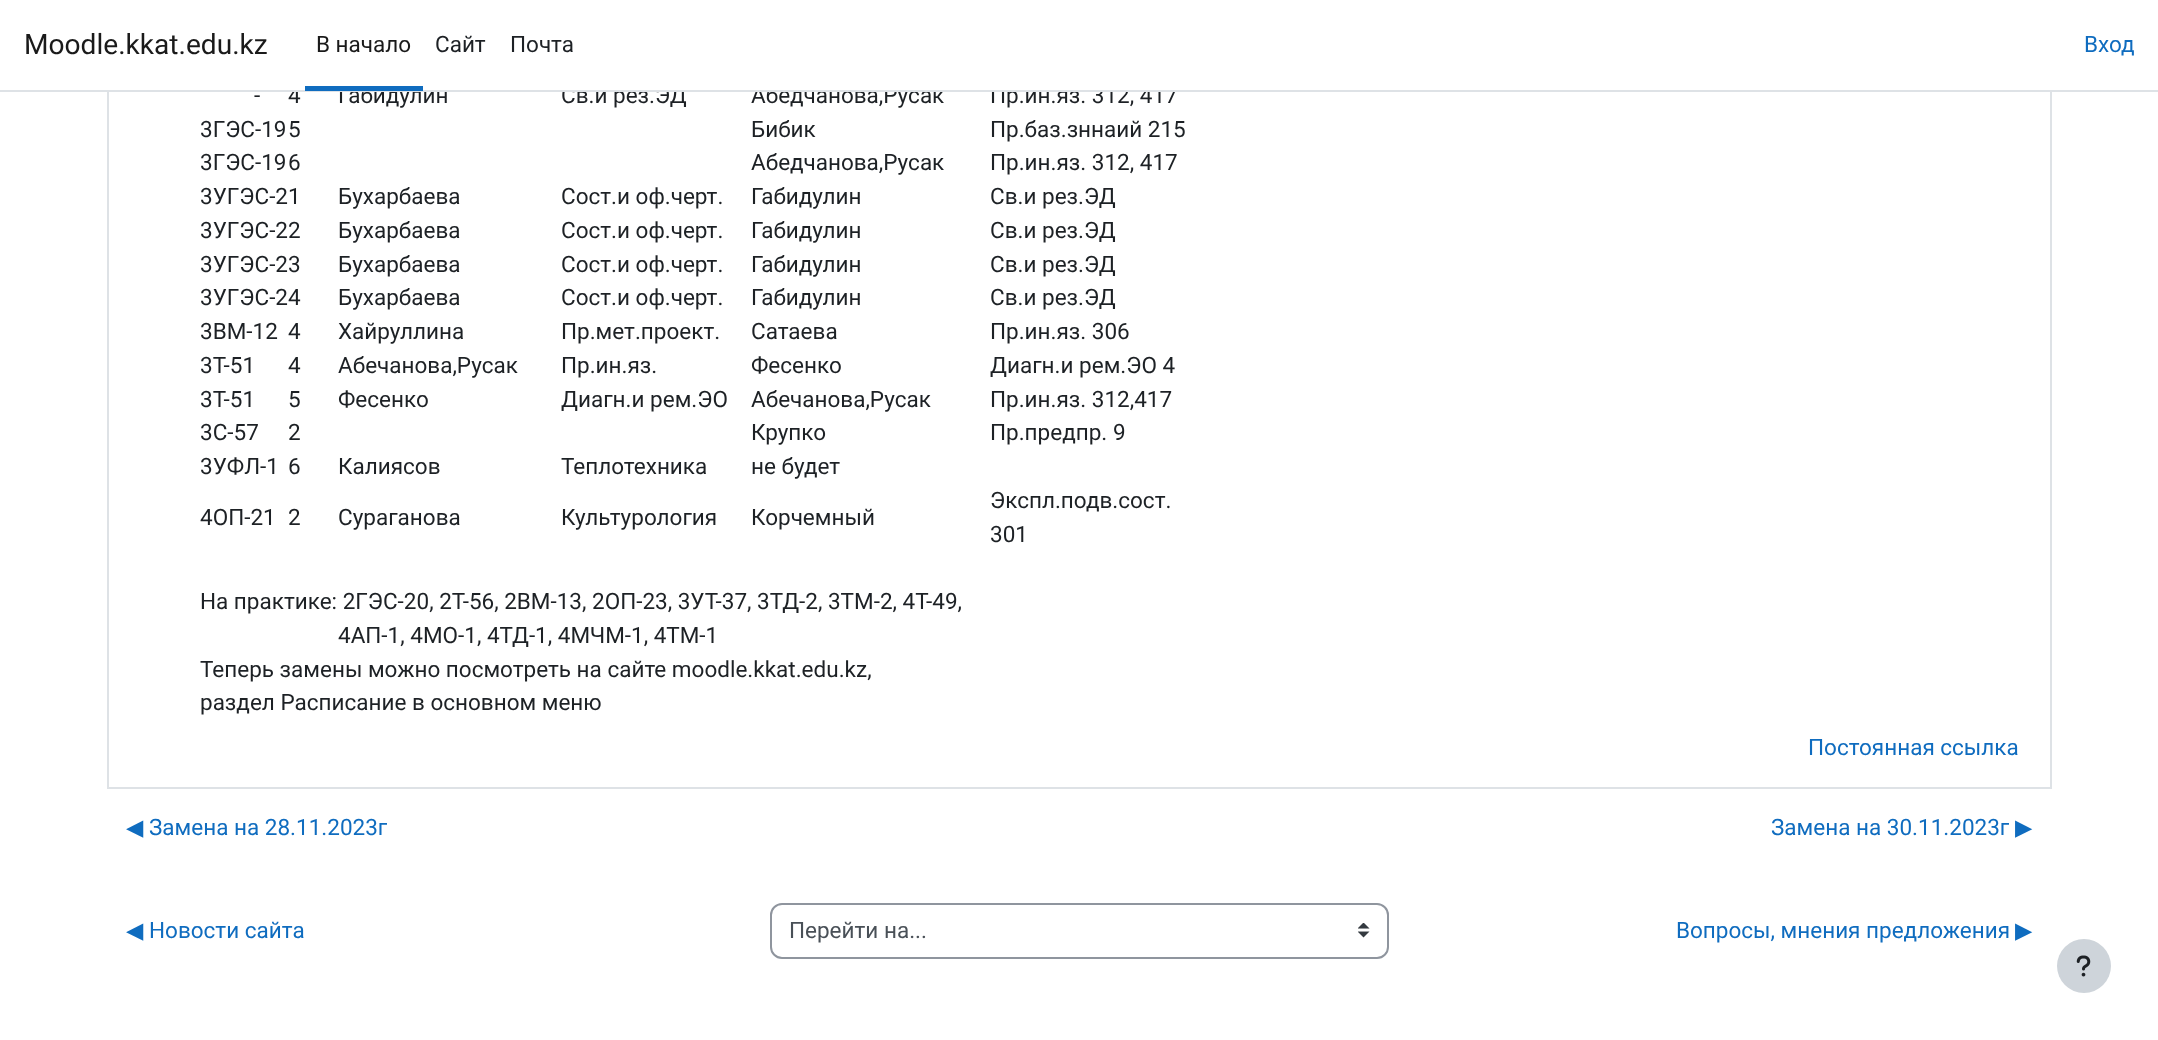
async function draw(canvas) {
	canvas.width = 2158;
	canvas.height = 1040;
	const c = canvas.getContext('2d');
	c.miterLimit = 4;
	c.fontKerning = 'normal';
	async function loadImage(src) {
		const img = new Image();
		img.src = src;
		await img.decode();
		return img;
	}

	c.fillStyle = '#fff';
	c.fillRect(0, 0, 2158, 1040);
	c.strokeStyle = '#dee2e6';
	c.lineWidth = 2;
	c.strokeRect(108, -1, 1943, 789);
	c.font = '22.5px Roboto';
	c.fillStyle = '#1d2125';
	for (const [text, x, y] of [
		['4', 288, 103],
		['Габидулин', 338, 103],
		['Св.и рез.ЭД', 561, 103],
		['Абедчанова,Русак', 751, 103],
		['Пр.ин.яз. 312, 417', 990, 103],
	]) {
		c.fillText(text, x, y);
	}
	c.fillStyle = '#fff';
	c.fillRect(107, 0, 1945, 90);
	c.fillStyle = '#dee2e6';
	c.fillRect(0, 90, 2158, 2);
	c.font = '28.1px Roboto';
	c.fillStyle = '#1a1a1a';
	c.fillText('Moodle.kkat.edu.kz', 24, 54);
	c.fillStyle = '#0f6cbf';
	c.fillRect(305, 86, 118, 5);
	c.font = '22.5px Roboto';
	c.fillStyle = '#1a1a1a';
	c.fillText('В начало', 316, 52);
	c.fillStyle = '#1d2125';
	c.fillText('Сайт', 435, 52);
	c.fillText('Почта', 510, 52);
	c.fillStyle = '#0f6cbf';
	c.fillText('Вход', 2084, 52);
	c.fillStyle = '#1d2125';
	for (const [text, x, y] of [
		['-', 254, 103],
		['3ГЭС-19', 200, 137],
		['5', 288, 137],
		['Бибик', 751, 137],
		['Пр.баз.зннаий 215', 990, 137],
		['3ГЭС-19', 200, 170],
		['6', 288, 170],
		['Абедчанова,Русак', 751, 170],
		['Пр.ин.яз. 312, 417', 990, 170],
		['3УГЭС-21', 200, 204],
		['Бухарбаева', 338, 204],
		['Сост.и оф.черт.', 561, 204],
		['Габидулин', 751, 204],
		['Св.и рез.ЭД', 990, 204],
		['3УГЭС-22', 200, 238],
		['Бухарбаева', 338, 238],
		['Сост.и оф.черт.', 561, 238],
		['Габидулин', 751, 238],
		['Св.и рез.ЭД', 990, 238],
		['3УГЭС-23', 200, 272],
		['Бухарбаева', 338, 272],
		['Сост.и оф.черт.', 561, 272],
		['Габидулин', 751, 272],
		['Св.и рез.ЭД', 990, 272],
		['3УГЭС-24', 200, 305],
		['Бухарбаева', 338, 305],
		['Сост.и оф.черт.', 561, 305],
		['Габидулин', 751, 305],
		['Св.и рез.ЭД', 990, 305],
		['3ВМ-12', 200, 339],
		['4', 288, 339],
		['Хайруллина', 338, 339],
		['Пр.мет.проект.', 561, 339],
		['Сатаева', 751, 339],
		['Пр.ин.яз. 306', 990, 339],
		['3Т-51', 200, 373],
		['4', 288, 373],
		['Абечанова,Русак', 338, 373],
		['Пр.ин.яз.', 561, 373],
		['Фесенко', 751, 373],
		['Диагн.и рем.ЭО 4', 990, 373],
		['3Т-51', 200, 407],
		['5', 288, 407],
		['Фесенко', 338, 407],
		['Диагн.и рем.ЭО', 561, 407],
		['Абечанова,Русак', 751, 407],
		['Пр.ин.яз. 312,417', 990, 407],
		['3С-57', 200, 440],
		['2', 288, 440],
		['Крупко', 751, 440],
		['Пр.предпр. 9', 990, 440],
		['3УФЛ-1', 200, 474],
		['6', 288, 474],
		['Калиясов', 338, 474],
		['Теплотехника', 561, 474],
		['не будет', 751, 474],
		['4ОП-21', 200, 525],
		['2', 288, 525],
		['Сураганова', 338, 525],
		['Культурология', 561, 525],
		['Корчемный', 751, 525],
		['Экспл.подв.сост.', 990, 508],
		['301', 990, 542],
		['На практике: 2ГЭС-20, 2Т-56, 2ВМ-13, 2ОП-23, 3УТ-37, 3ТД-2, 3ТМ-2, 4Т-49,', 200, 609],
		['4АП-1, 4МО-1, 4ТД-1, 4МЧМ-1, 4ТМ-1', 338, 643],
		['Теперь замены можно посмотреть на сайте moodle.kkat.edu.kz,', 200, 677],
		['раздел Расписание в основном меню', 200, 710],
	]) {
		c.fillText(text, x, y);
	}
	c.fillStyle = '#0f6cbf';
	c.fillText('Постоянная ссылка', 1808, 755);
	c.font = '22.5px DejaVu Sans';
	c.fillText('◀︎', 126, 835);
	c.font = '22.5px Roboto';
	c.fillText('Замена на 28.11.2023г', 149, 835);
	c.fillText('Замена на 30.11.2023г', 1771, 835);
	c.font = '22.5px DejaVu Sans';
	c.fillText('▶︎', 2015, 835);
	c.fillText('◀︎', 126, 938);
	c.font = '22.5px Roboto';
	c.fillText('Новости сайта', 149, 938);
	c.drawImage(await loadImage('img1.png'), 1358, 923, 12, 15);
	c.beginPath();
	c.roundRect(771, 904, 617, 54, 11);
	c.strokeStyle = '#8f959e';
	c.stroke();
	c.fillStyle = '#495057';
	c.fillText('Перейти на...', 789, 938);
	c.fillStyle = '#0f6cbf';
	c.fillText('Вопросы, мнения предложения', 1676, 938);
	c.font = '22.5px DejaVu Sans';
	c.fillText('▶︎', 2015, 938);
	c.fillStyle = '#ced4da';
	c.beginPath();
	c.arc(2084, 966, 27, 0, 2 * Math.PI);
	c.fill();
	c.drawImage(await loadImage('img2.png'), 2076, 955, 15, 22);
}

draw(document.querySelector('canvas'));
